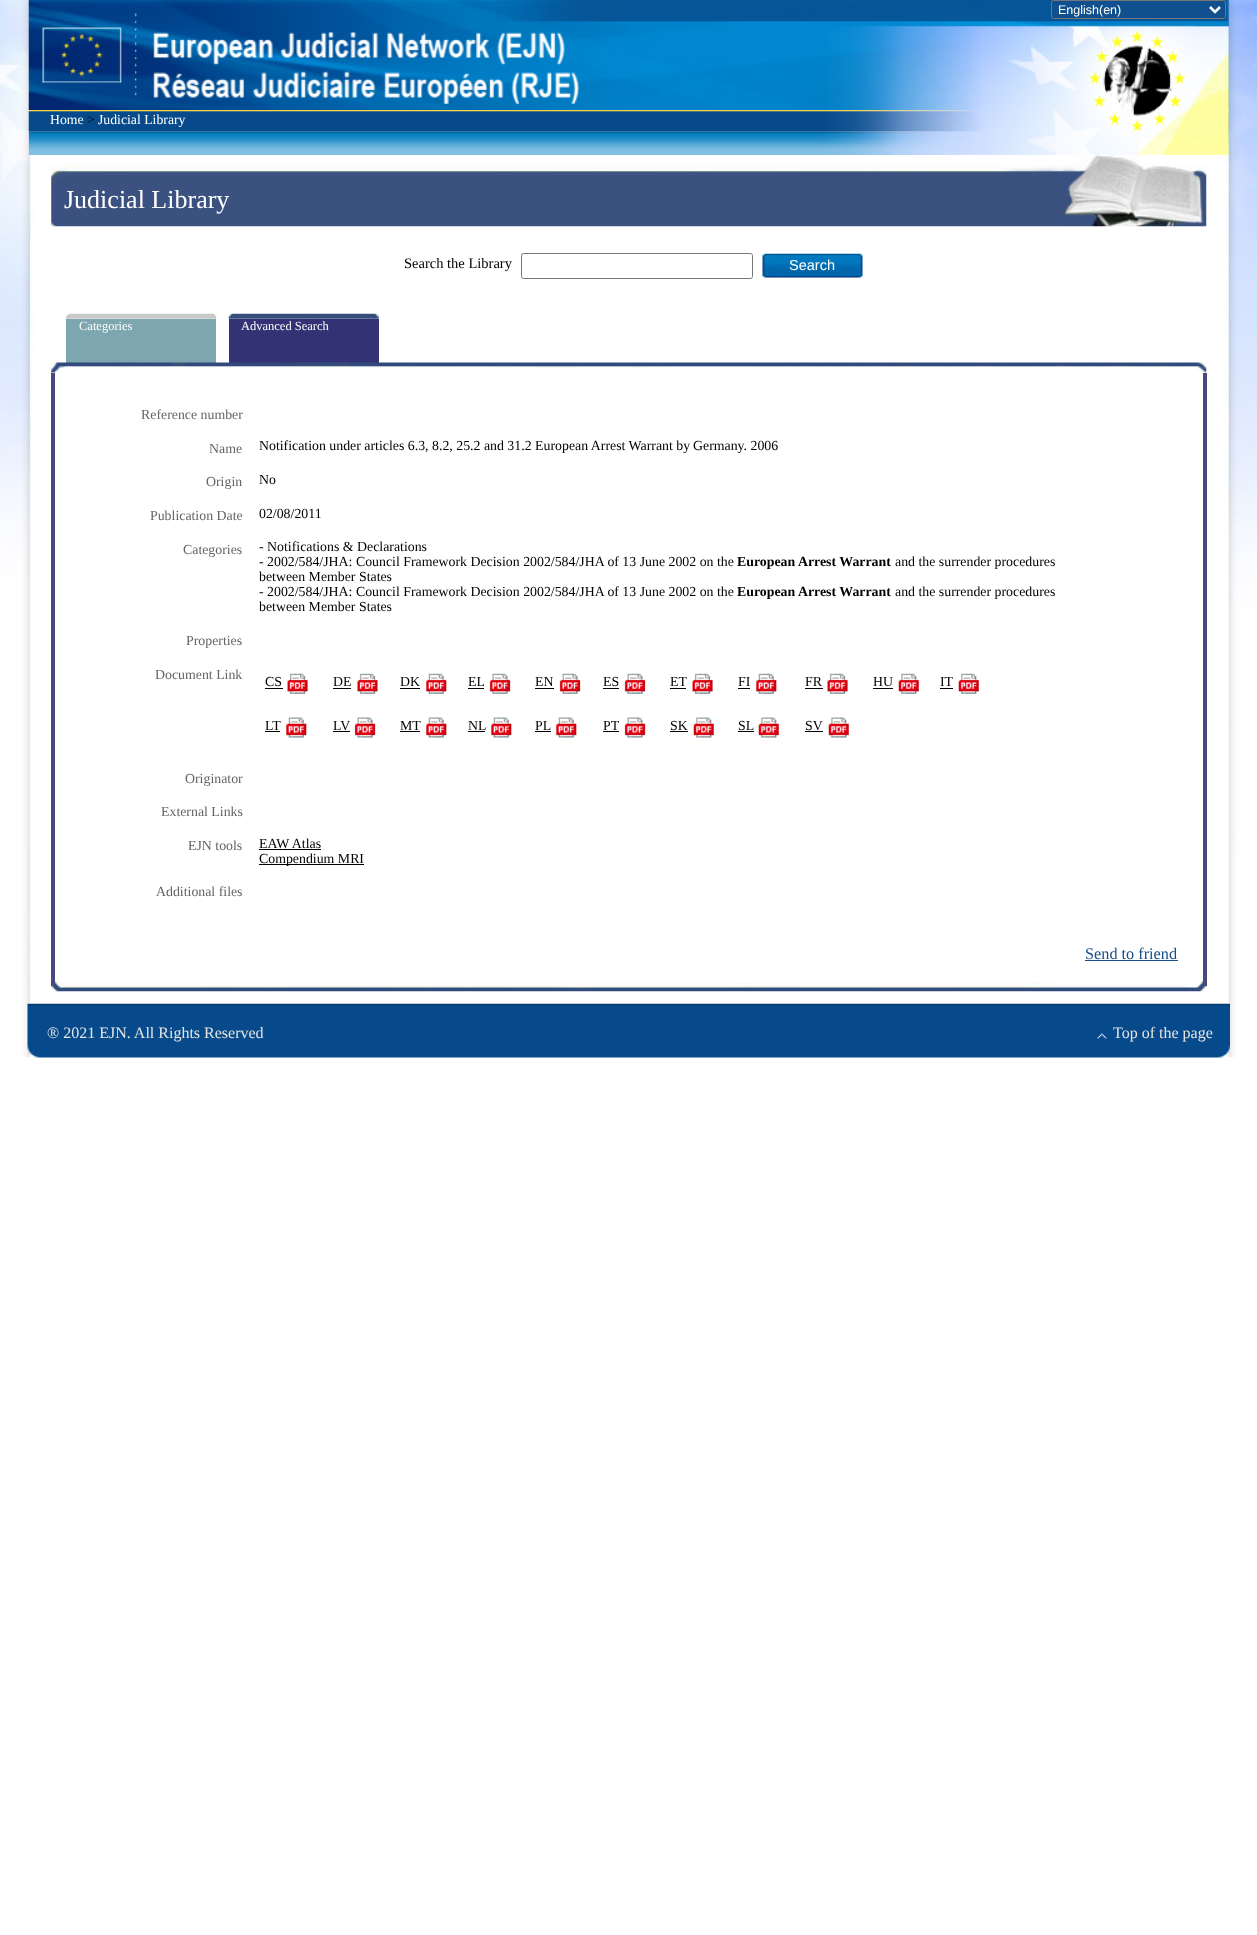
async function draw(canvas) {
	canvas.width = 1257;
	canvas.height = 1935;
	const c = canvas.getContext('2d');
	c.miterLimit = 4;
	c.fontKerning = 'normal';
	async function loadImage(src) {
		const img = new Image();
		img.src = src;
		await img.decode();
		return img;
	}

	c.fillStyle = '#fff';
	c.fillRect(0, 0, 1257, 1935);
	c.drawImage(await loadImage('img1.png'), 0, 0, 1257, 1057);
	c.drawImage(await loadImage('img2.png'), 28, 0, 1200, 110);
	c.fillStyle = '#257bc4';
	c.fillRect(1228, 0, 1, 110);
	c.drawImage(await loadImage('img3.png'), 496, 0, 732, 22);
	c.fillStyle = '#10508e';
	c.beginPath();
	c.roundRect(1051.5, 0.5, 174, 18, 2);
	c.fill();
	c.strokeStyle = '#767676';
	c.stroke();
	c.beginPath();
	c.moveTo(1210, 7);
	c.lineTo(1215, 12);
	c.lineTo(1220, 7);
	c.strokeStyle = '#fff';
	c.lineWidth = 2.5;
	c.stroke();
	c.font = '12.5px Liberation Sans';
	c.fillStyle = '#fff';
	c.fillText('English(en)', 1058, 14);
	c.drawImage(await loadImage('img4.png'), 153, 32, 426, 72);
	c.drawImage(await loadImage('img7.png'), 28, 131, 1201, 24);
	c.drawImage(await loadImage('img6.png'), 28, 110, 1201, 22);
	c.drawImage(await loadImage('img5.png'), 828, 25, 401, 130);
	c.font = '13.75px Liberation Serif';
	c.fillText('Home', 50, 124);
	c.fillStyle = '#000';
	c.fillText('>', 87, 124);
	c.fillStyle = '#fff';
	c.fillText('Judicial Library', 98, 124);
	c.drawImage(await loadImage('img8.png'), 51, 155, 1156, 72);
	c.font = '26px Liberation Serif';
	c.fillText('Judicial Library', 64, 208);
	c.font = '14.5px Liberation Serif';
	c.fillStyle = '#000';
	c.fillText('Search the Library', 404, 268);
	c.beginPath();
	c.roundRect(521.5, 253.5, 231, 25, 2);
	c.strokeStyle = '#767676';
	c.lineWidth = 1;
	c.stroke();
	c.drawImage(await loadImage('img9.png'), 762, 253, 101, 25);
	c.font = '14.5px Liberation Sans';
	c.fillStyle = '#fff';
	c.fillText('Search', 789, 270);
	c.drawImage(await loadImage('img10.png'), 66, 313, 151, 6);
	c.drawImage(await loadImage('img11.png'), 228, 313, 151, 6);
	c.fillStyle = '#7ea6ae';
	c.fillRect(66, 319, 150, 44);
	c.font = '12.5px Liberation Serif';
	c.fillStyle = '#fff';
	c.fillText('Categories', 79, 330);
	c.fillStyle = '#323275';
	c.fillRect(229, 319, 150, 44);
	c.fillStyle = '#fff';
	c.fillText('Advanced Search', 241, 330);
	c.drawImage(await loadImage('img12.png'), 51, 362, 1156, 11);
	c.drawImage(await loadImage('img25.png'), 51, 981, 1156, 11);
	c.fillStyle = '#494980';
	c.fillRect(1203, 373, 4, 613);
	c.fillRect(51, 373, 4, 613);
	c.font = '13.85px Liberation Serif';
	c.fillStyle = '#646464';
	c.fillText('Reference number', 141, 419);
	c.fillText('Name', 209, 453);
	c.fillStyle = '#000';
	c.fillText('Notification under articles 6.3, 8.2, 25.2 and 31.2 European Arrest Warrant by', 259, 450);
	c.fillText('Germany. 2006', 693, 450);
	c.fillStyle = '#646464';
	c.fillText('Origin', 206, 486);
	c.fillStyle = '#000';
	c.fillText('No', 259, 484);
	c.fillStyle = '#646464';
	c.fillText('Publication Date', 150, 520);
	c.fillStyle = '#000';
	c.fillText('02/08/2011', 259, 518);
	c.fillStyle = '#646464';
	c.fillText('Categories', 183, 554);
	c.fillStyle = '#000';
	c.fillText('- Notifications & Declarations', 259, 551);
	c.fillText('- 2002/584/JHA: Council Framework Decision 2002/584/JHA of 13 June 2002 on the', 259, 566);
	c.font = 'bold 13.85px Liberation Serif';
	c.fillText('European Arrest Warrant', 737, 566);
	c.font = '13.85px Liberation Serif';
	for (const [text, x, y] of [
		['and the surrender procedures', 895, 566],
		['between Member States', 259, 581],
		['- 2002/584/JHA: Council Framework Decision 2002/584/JHA of 13 June 2002 on the', 259, 596],
	]) {
		c.fillText(text, x, y);
	}
	c.font = 'bold 13.85px Liberation Serif';
	c.fillText('European Arrest Warrant', 737, 596);
	c.font = '13.85px Liberation Serif';
	c.fillText('and the surrender procedures', 895, 596);
	c.fillText('between Member States', 259, 611);
	c.fillStyle = '#646464';
	c.fillText('Properties', 186, 645);
	c.fillText('Document Link', 155, 679);
	c.fillStyle = '#000';
	c.fillText('CS', 265, 686);
	c.fillRect(265, 688, 18, 1);
	c.drawImage(await loadImage('img13.png'), 287, 673, 21, 21);
	c.fillText('DE', 333, 686);
	c.fillRect(333, 688, 18, 1);
	c.drawImage(await loadImage('img14.png'), 357, 673, 21, 21);
	c.fillText('DK', 400, 686);
	c.fillRect(400, 688, 20, 1);
	c.drawImage(await loadImage('img15.png'), 426, 673, 21, 21);
	c.fillText('EL', 468, 686);
	c.fillRect(468, 688, 16, 1);
	c.drawImage(await loadImage('img16.png'), 489, 673, 22, 21);
	c.fillText('EN', 535, 686);
	c.fillRect(535, 688, 19, 1);
	c.drawImage(await loadImage('img17.png'), 559, 673, 22, 21);
	c.fillText('ES', 603, 686);
	c.fillRect(603, 688, 16, 1);
	c.drawImage(await loadImage('img16.png'), 624, 673, 22, 21);
	c.fillText('ET', 670, 686);
	c.fillRect(670, 688, 16, 1);
	c.drawImage(await loadImage('img13.png'), 692, 673, 21, 21);
	c.fillText('FI', 738, 686);
	c.fillRect(738, 688, 12, 1);
	c.drawImage(await loadImage('img18.png'), 756, 673, 21, 21);
	c.fillText('FR', 805, 686);
	c.fillRect(805, 688, 18, 1);
	c.drawImage(await loadImage('img13.png'), 827, 673, 21, 21);
	c.fillText('HU', 873, 686);
	c.fillRect(873, 688, 20, 1);
	c.drawImage(await loadImage('img19.png'), 898, 673, 21, 21);
	c.fillText('IT', 940, 686);
	c.fillRect(940, 688, 13, 1);
	c.drawImage(await loadImage('img19.png'), 958, 673, 21, 21);
	c.fillText('LT', 265, 730);
	c.fillRect(265, 731, 15, 1);
	c.drawImage(await loadImage('img20.png'), 286, 717, 21, 21);
	c.fillText('LV', 333, 730);
	c.fillRect(333, 731, 17, 1);
	c.drawImage(await loadImage('img21.png'), 354, 717, 22, 21);
	c.fillText('MT', 400, 730);
	c.fillRect(400, 731, 20, 1);
	c.drawImage(await loadImage('img22.png'), 426, 717, 21, 21);
	c.fillText('NL', 468, 730);
	c.fillRect(468, 731, 17, 1);
	c.drawImage(await loadImage('img22.png'), 491, 717, 21, 21);
	c.fillText('PL', 535, 730);
	c.fillRect(535, 731, 16, 1);
	c.drawImage(await loadImage('img20.png'), 556, 717, 21, 21);
	c.fillText('PT', 603, 730);
	c.fillRect(603, 731, 16, 1);
	c.drawImage(await loadImage('img23.png'), 624, 717, 22, 21);
	c.fillText('SK', 670, 730);
	c.fillRect(670, 731, 18, 1);
	c.drawImage(await loadImage('img24.png'), 693, 717, 21, 21);
	c.fillText('SL', 738, 730);
	c.fillRect(738, 731, 16, 1);
	c.drawImage(await loadImage('img24.png'), 758, 717, 21, 21);
	c.fillText('SV', 805, 730);
	c.fillRect(805, 731, 18, 1);
	c.drawImage(await loadImage('img24.png'), 828, 717, 21, 21);
	c.fillStyle = '#646464';
	for (const [text, x, y] of [
		['Originator', 185, 783],
		['External Links', 161, 816],
		['EJN tools', 188, 850],
	]) {
		c.fillText(text, x, y);
	}
	c.fillStyle = '#000';
	c.fillText('EAW Atlas', 259, 848);
	c.fillRect(259, 849, 62, 1);
	c.fillRect(259, 864, 105, 1);
	c.fillText('Compendium MRI', 259, 863);
	c.fillStyle = '#646464';
	c.fillText('Additional files', 156, 896);
	c.font = '16.25px Liberation Serif';
	c.fillStyle = '#15508a';
	c.fillText('Send to friend', 1085, 959);
	c.fillRect(1085, 960, 93, 1);
	c.drawImage(await loadImage('img26.png'), 27, 1003, 1203, 55);
	c.font = '16px Liberation Serif';
	c.fillStyle = '#e5e5e3';
	c.fillText('® 2021 EJN. All Rights Reserved', 47, 1038);
	c.drawImage(await loadImage('img27.png'), 1097, 1033, 10, 6);
	c.fillText('Top of the page', 1113, 1038);
}

draw(document.querySelector('canvas'));
